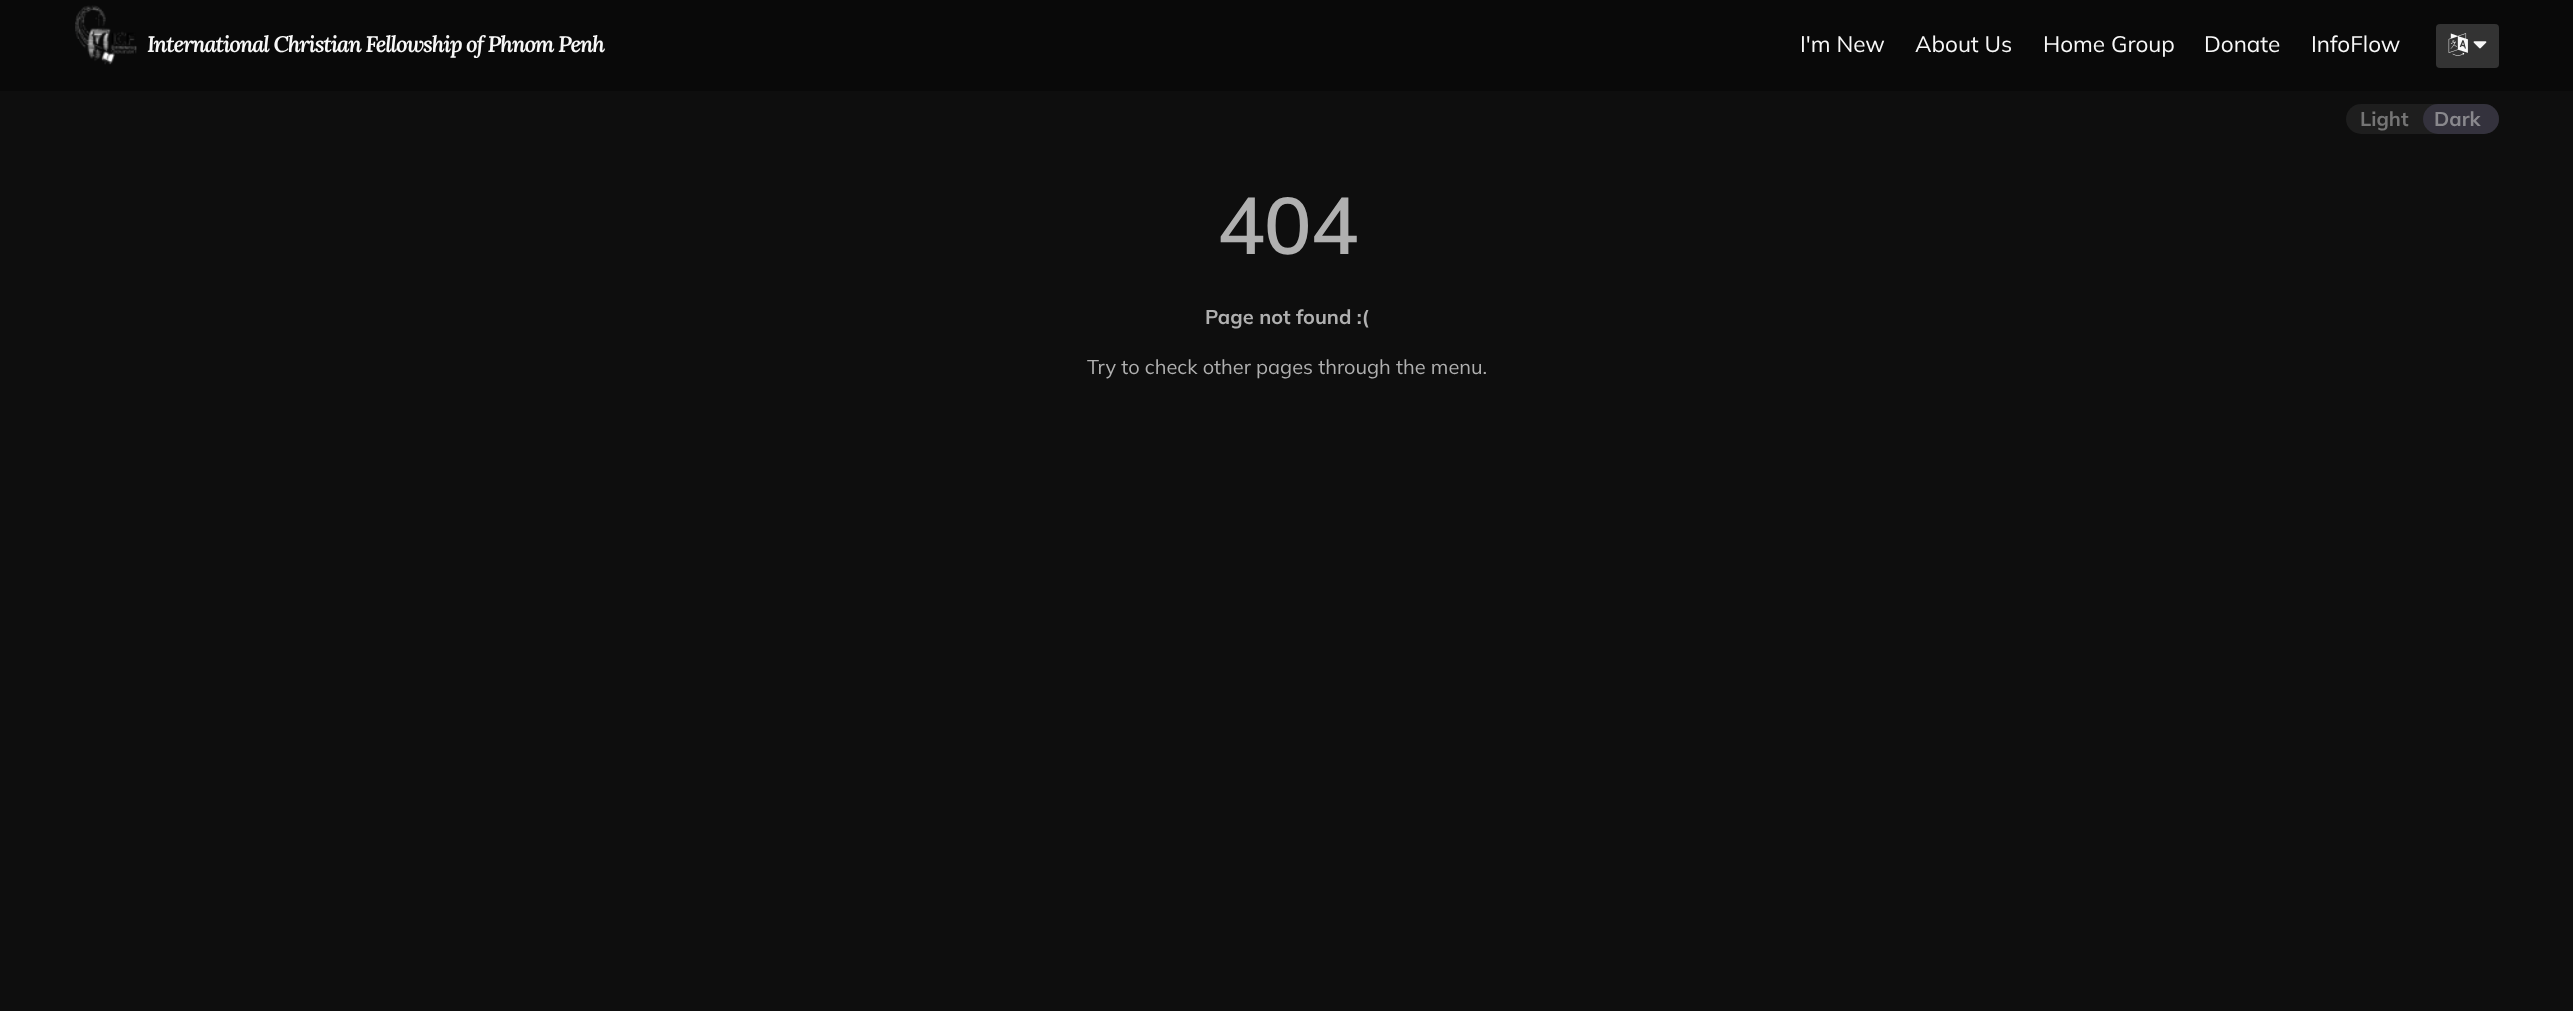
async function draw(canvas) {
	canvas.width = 2573;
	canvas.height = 1011;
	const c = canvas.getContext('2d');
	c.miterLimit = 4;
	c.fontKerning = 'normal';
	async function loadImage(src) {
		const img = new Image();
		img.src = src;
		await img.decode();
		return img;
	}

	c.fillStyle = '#0e0e0e';
	c.fillRect(0, 0, 2573, 1011);
	c.fillStyle = '#090909';
	c.fillRect(0, 0, 2573, 91);
	c.drawImage(await loadImage('img1.png'), 75, 5, 62, 60);
	c.letterSpacing = '-1.25px';
	c.font = 'italic 600 22.5px Lora';
	c.fillStyle = '#f8f8f8';
	c.fillText('International Christian Fellowship of Phnom Penh', 147, 52);
	c.letterSpacing = '0px';
	c.font = '22.5px Mulish';
	for (const [text, x, y] of [
		['I\'m New', 1800, 52],
		['About Us', 1915, 52],
		['Home Group', 2043, 52],
		['Donate', 2204, 52],
		['InfoFlow', 2311, 52],
	]) {
		c.fillText(text, x, y);
	}
	c.fillStyle = '#333';
	c.beginPath();
	c.roundRect(2436, 24, 63, 44, 4);
	c.fill();
	c.drawImage(await loadImage('img2.png'), 2448, 33, 39, 23);
	c.fillStyle = '#1e1e1e';
	c.beginPath();
	c.roundRect(2346, 104, 153, 30, 15);
	c.fill();
	c.fillStyle = '#34323d';
	c.beginPath();
	c.roundRect(2423, 104, 76, 30, 15);
	c.fill();
	c.font = 'bold 20px Mulish';
	c.fillStyle = '#757575';
	c.fillText('Light', 2360, 126);
	c.fillStyle = '#89888d';
	c.fillText('Dark', 2434, 126);
	c.letterSpacing = '-1.25px';
	c.font = '600 80px Mulish';
	c.fillStyle = '#b0b0b0';
	c.fillText('404', 1217, 254);
	c.letterSpacing = '0px';
	c.font = 'bold 20px Mulish';
	c.fillText('Page not found :(', 1205, 324);
	c.font = '20px Mulish';
	c.fillText('Try to check other pages through the menu.', 1087, 374);
}

draw(document.querySelector('canvas'));
